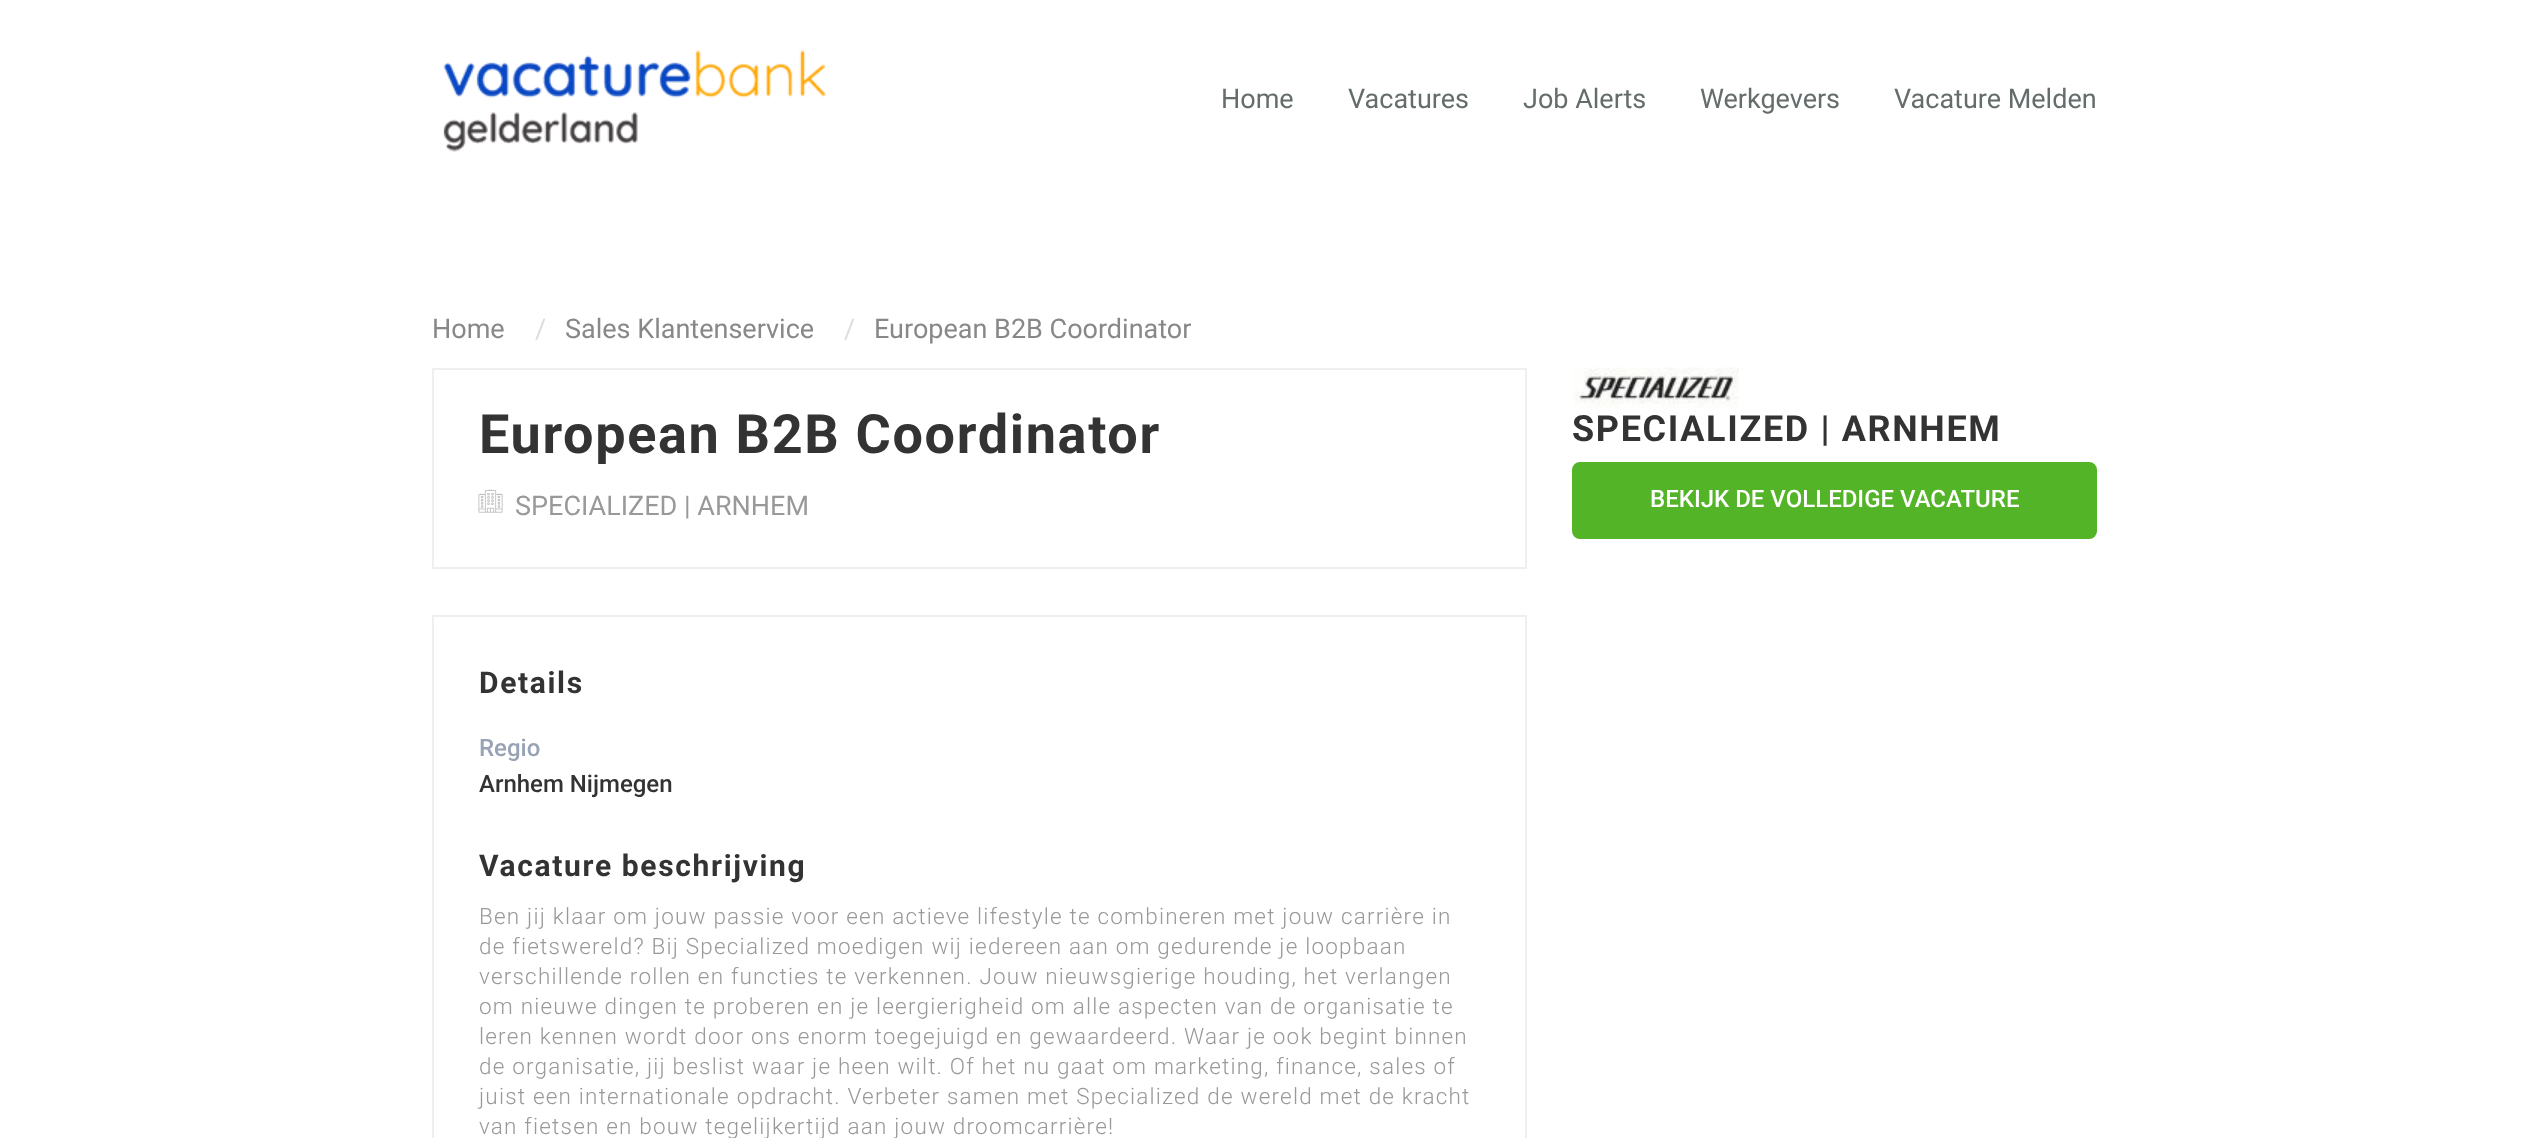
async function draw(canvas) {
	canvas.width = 2529;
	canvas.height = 1138;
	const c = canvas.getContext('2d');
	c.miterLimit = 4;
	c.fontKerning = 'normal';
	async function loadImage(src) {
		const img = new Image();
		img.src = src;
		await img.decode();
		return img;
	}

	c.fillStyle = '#fff';
	c.fillRect(0, 0, 2529, 1138);
	c.drawImage(await loadImage('img1.png'), 443, 49, 383, 103);
	c.font = '27px Roboto';
	c.fillStyle = '#656c6c';
	for (const [text, x, y] of [
		['Home', 1221, 108],
		['Vacatures', 1348, 108],
		['Job Alerts', 1523, 108],
		['Werkgevers', 1700, 108],
		['Vacature Melden', 1894, 108],
	]) {
		c.fillText(text, x, y);
	}
	c.fillStyle = '#888';
	c.fillText('Home', 432, 338);
	c.fillStyle = '#ddd';
	c.fillText('/', 535, 338);
	c.fillStyle = '#888';
	c.fillText('Sales Klantenservice', 565, 338);
	c.fillStyle = '#ddd';
	c.fillText('/', 844, 338);
	c.fillStyle = '#888';
	c.fillText('European B2B Coordinator', 874, 338);
	c.strokeStyle = '#efefef';
	c.lineWidth = 2;
	c.strokeRect(433, 369, 1093, 199);
	c.letterSpacing = '1.65px';
	c.font = 'bold 54px Roboto';
	c.fillStyle = '#333';
	c.fillText('European B2B Coordinator', 479, 453);
	c.drawImage(await loadImage('img2.png'), 478, 489, 25, 24);
	c.letterSpacing = '0px';
	c.font = '27px Roboto';
	c.fillStyle = '#999';
	c.fillText('SPECIALIZED | ARNHEM', 515, 515);
	c.strokeRect(433, 616, 1093, 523);
	c.letterSpacing = '1.65px';
	c.font = 'bold 30px Roboto';
	c.fillStyle = '#333';
	c.fillText('Details', 479, 693);
	c.letterSpacing = '0px';
	c.font = '500 24px Roboto';
	c.fillStyle = '#97a2b4';
	c.fillText('Regio', 479, 756);
	c.fillStyle = '#333';
	c.fillText('Arnhem Nijmegen', 479, 792);
	c.letterSpacing = '1.65px';
	c.font = 'bold 30px Roboto';
	c.fillText('Vacature beschrijving', 479, 876);
	c.letterSpacing = '1.2px';
	c.font = '300 22.5px Roboto';
	c.fillStyle = '#999';
	for (const [text, x, y] of [
		['Ben jij klaar om jouw passie voor een actieve lifestyle te combineren met jouw carrière in', 479, 924],
		['de fietswereld? Bij Specialized moedigen wij iedereen aan om gedurende je loopbaan', 479, 954],
		['verschillende rollen en functies te verkennen. Jouw nieuwsgierige houding, het verlangen', 479, 984],
		['om nieuwe dingen te proberen en je leergierigheid om alle aspecten van de organisatie te', 479, 1014],
		['leren kennen wordt door ons enorm toegejuigd en gewaardeerd. Waar je ook begint binnen', 479, 1044],
		['de organisatie, jij beslist waar je heen wilt. Of het nu gaat om marketing, finance, sales of', 479, 1074],
		['juist een internationale opdracht. Verbeter samen met Specialized de wereld met de kracht', 479, 1104],
		['van fietsen en bouw tegelijkertijd aan jouw droomcarrière!', 479, 1134],
	]) {
		c.fillText(text, x, y);
	}
	c.drawImage(await loadImage('img3.png'), 1574, 367, 165, 41);
	c.letterSpacing = '1.65px';
	c.font = 'bold 36px Roboto';
	c.fillStyle = '#333';
	c.fillText('SPECIALIZED | ARNHEM', 1572, 441);
	c.fillStyle = '#53b427';
	c.beginPath();
	c.roundRect(1573, 463, 523, 75, 7);
	c.fill();
	c.strokeStyle = '#53b427';
	c.stroke();
	c.letterSpacing = '0px';
	c.font = '500 24px Roboto';
	c.fillStyle = '#fff';
	c.fillText('BEKIJK DE VOLLEDIGE VACATURE', 1650, 507);
}

draw(document.querySelector('canvas'));
